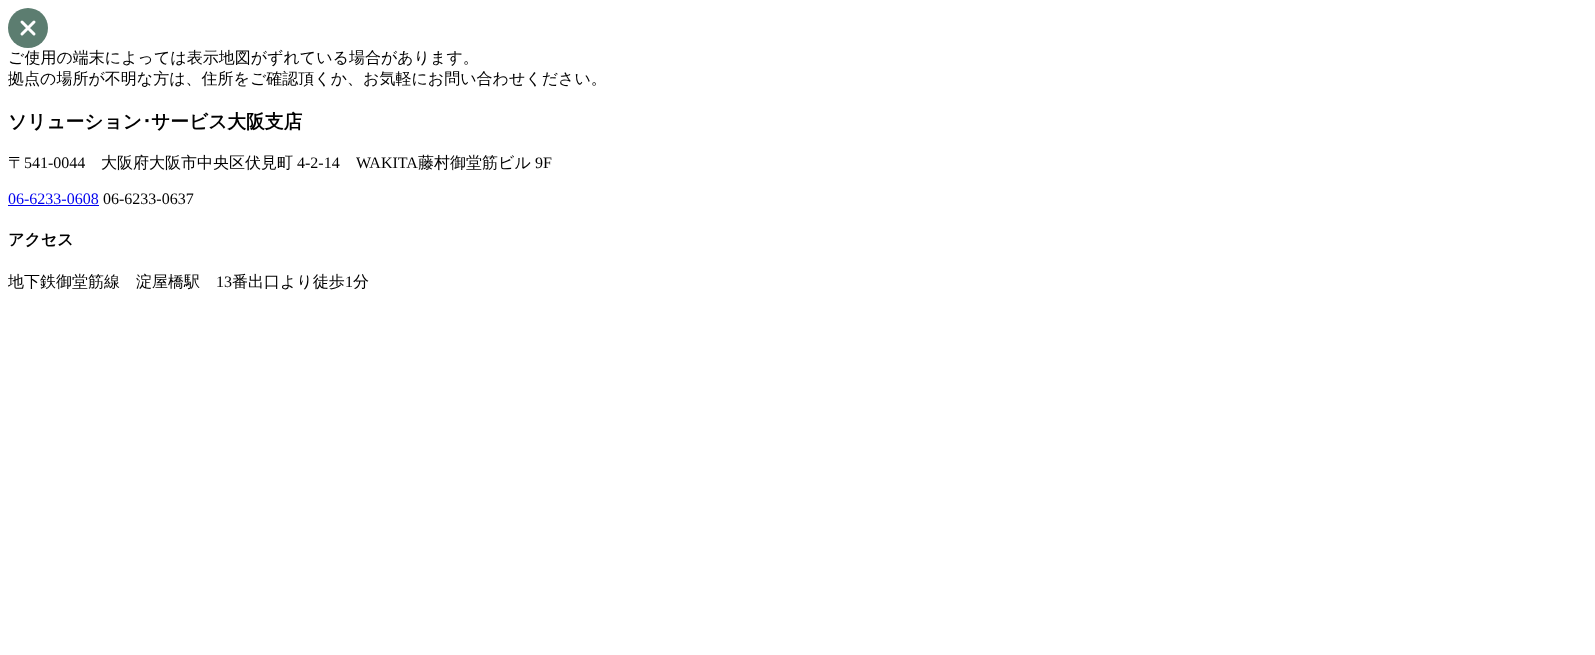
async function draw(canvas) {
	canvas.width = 1595;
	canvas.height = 655;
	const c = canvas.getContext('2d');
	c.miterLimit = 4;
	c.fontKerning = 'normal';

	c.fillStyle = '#fff';
	c.fillRect(0, 0, 1595, 655);
	c.fillStyle = '#5c7d70';
	c.beginPath();
	c.arc(28, 28, 20, 0, 2 * Math.PI);
	c.fill();
	c.beginPath();
	c.moveTo(34, 34);
	c.lineTo(22, 22);
	c.moveTo(22, 34);
	c.lineTo(34, 22);
	c.strokeStyle = '#fff';
	c.lineWidth = 3;
	c.lineCap = 'round';
	c.lineJoin = 'round';
	c.stroke();
	c.font = '500 16px WenQuanYi Zen Hei';
	c.fillStyle = '#000';
	c.fillText('ご使用の端末によっては表示地図がずれている場合があります。', 8, 63);
	c.fillText('拠点の場所が不明な方は、住所をご確認頂くか、お気軽にお問い合わせください。', 8, 84);
	c.font = 'bold 18.75px WenQuanYi Zen Hei';
	c.fillText('ソリューション', 8, 128);
	c.font = 'bold 18.75px IPAGothic';
	c.fillText('･', 142, 128);
	c.font = 'bold 18.75px WenQuanYi Zen Hei';
	c.fillText('サービス大阪支店', 151, 128);
	c.font = '500 16px WenQuanYi Zen Hei';
	c.fillText('〒', 8, 168);
	c.font = '16px Liberation Serif';
	c.fillText('541-0044', 24, 168);
	c.font = '500 16px WenQuanYi Zen Hei';
	c.fillText('大阪府大阪市中央区伏見町', 101, 168);
	c.font = '16px Liberation Serif';
	c.fillText('4-2-14', 297, 168);
	c.fillText('WAKITA', 356, 168);
	c.font = '500 16px WenQuanYi Zen Hei';
	c.fillText('藤村御堂筋ビル', 418, 168);
	c.font = '16px Liberation Serif';
	c.fillText('9F', 535, 168);
	c.fillStyle = '#00e';
	c.fillText('06-6233-0608', 8, 204);
	c.fillRect(8, 205, 91, 1);
	c.fillStyle = '#000';
	c.fillText('06-6233-0637', 103, 204);
	c.font = 'bold 16px WenQuanYi Zen Hei';
	c.fillText('アクセス', 8, 245);
	c.font = '500 16px WenQuanYi Zen Hei';
	c.fillText('地下鉄御堂筋線　淀屋橋駅', 8, 287);
	c.font = '16px Liberation Serif';
	c.fillText('13', 216, 287);
	c.font = '500 16px WenQuanYi Zen Hei';
	c.fillText('番出口より徒歩', 232, 287);
	c.font = '16px Liberation Serif';
	c.fillText('1', 345, 287);
	c.font = '500 16px WenQuanYi Zen Hei';
	c.fillText('分', 353, 287);
}

draw(document.querySelector('canvas'));
